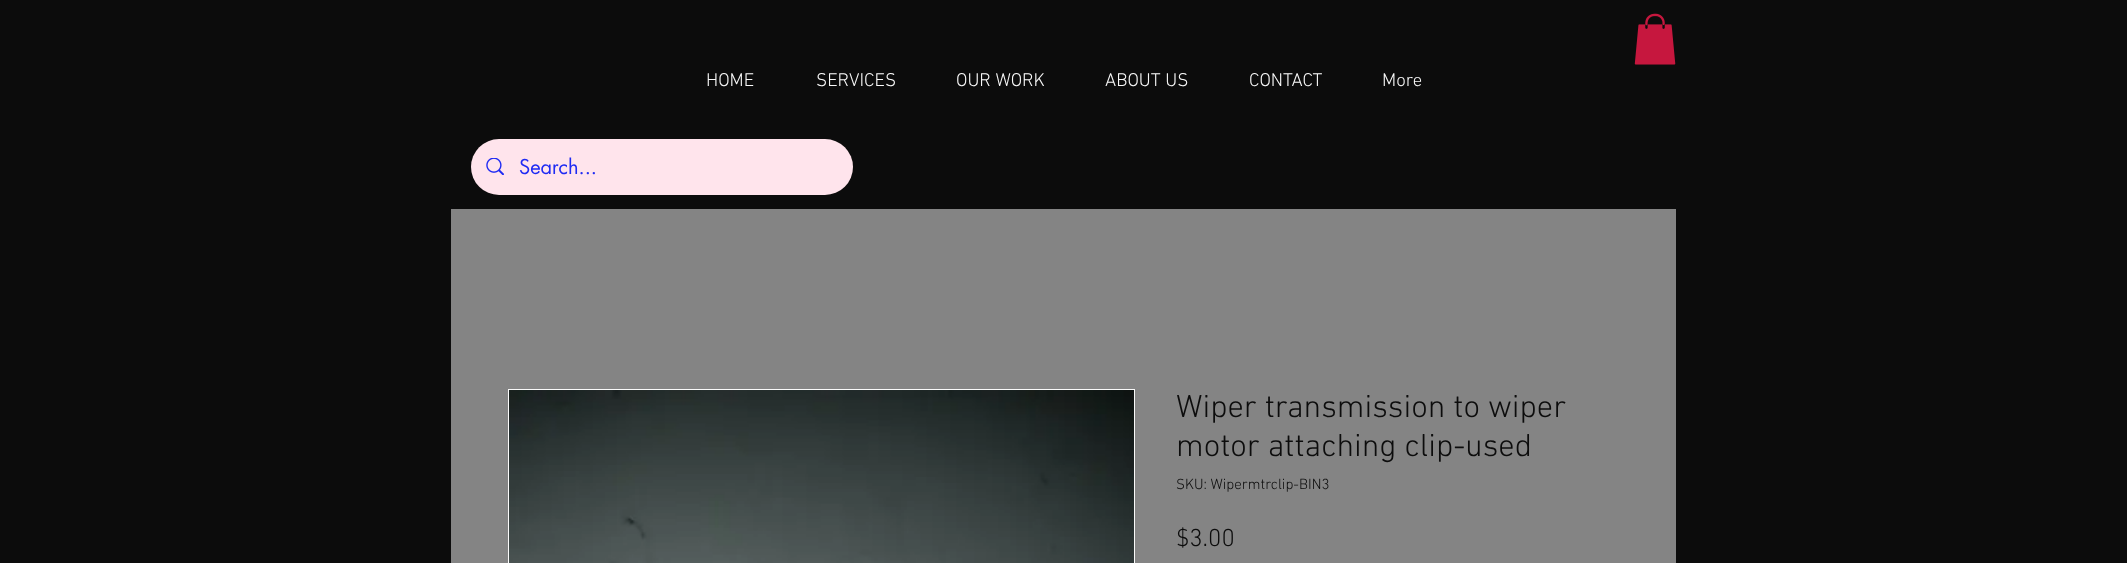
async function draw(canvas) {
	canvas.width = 2127;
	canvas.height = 563;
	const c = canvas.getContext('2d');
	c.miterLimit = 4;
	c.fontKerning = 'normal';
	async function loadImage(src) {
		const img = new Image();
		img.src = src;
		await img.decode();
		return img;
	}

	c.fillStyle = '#0c0c0c';
	c.fillRect(0, 0, 2127, 563);
	c.drawImage(await loadImage('img1.png'), 1634, 13, 42, 52);
	c.font = '300 18.75px "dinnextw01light"';
	c.fillStyle = '#fafafa';
	for (const [text, x, y] of [
		['HOME', 706, 86],
		['SERVICES', 816, 86],
		['OUR WORK', 956, 86],
		['ABOUT US', 1105, 86],
		['CONTACT', 1249, 86],
		['More', 1382, 86],
	]) {
		c.fillText(text, x, y);
	}
	c.fillStyle = '#ffe4ec';
	c.beginPath();
	c.roundRect(471, 139, 382, 56, 28);
	c.fill();
	c.drawImage(await loadImage('img2.png'), 486, 158, 18, 17);
	c.font = '20px futura';
	c.fillStyle = '#1f2bf3';
	c.fillText('Search...', 519, 174);
	c.fillStyle = '#848484';
	c.fillRect(451, 209, 1225, 354);
	c.strokeStyle = '#fafafa';
	c.strokeRect(508.5, 389.5, 626, 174);
	c.drawImage(await loadImage('img3.png'), 509, 390, 625, 173);
	c.font = '300 32.5px "dinnextw01light"';
	c.fillStyle = '#0c0c0c';
	c.fillText('Wiper transmission to wiper', 1176, 417);
	c.fillText('motor attaching clip-used', 1176, 456);
	c.font = '300 15px "dinnextw01light"';
	c.fillText('SKU: Wipermtrclip-BIN3', 1176, 489);
	c.font = '300 25px "dinnextw01light"';
	c.fillText('$3.00', 1176, 546);
}

draw(document.querySelector('canvas'));
